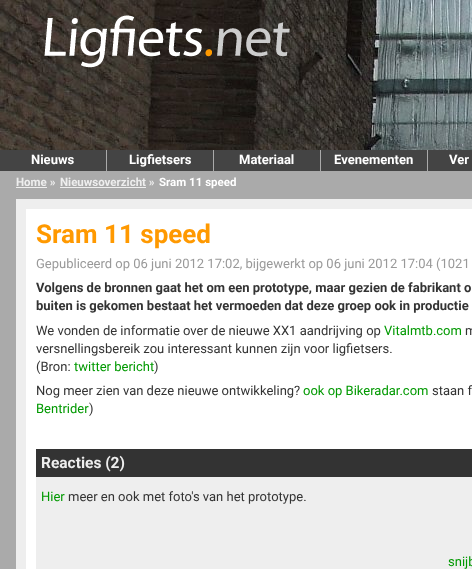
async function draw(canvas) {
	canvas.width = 472;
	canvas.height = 569;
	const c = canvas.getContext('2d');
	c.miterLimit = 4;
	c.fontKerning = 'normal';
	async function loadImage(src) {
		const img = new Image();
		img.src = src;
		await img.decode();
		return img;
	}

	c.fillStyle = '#444';
	c.fillRect(0, 0, 472, 569);
	c.drawImage(await loadImage('img1.png'), 0, 0, 472, 150);
	c.drawImage(await loadImage('img2.png'), 44, 15, 246, 53);
	c.fillStyle = '#aaa';
	c.fillRect(106, 150, 1, 21);
	c.font = 'bold 13px Roboto';
	c.fillStyle = '#fff';
	c.fillText('Nieuws', 31, 164);
	c.fillStyle = '#aaa';
	c.fillRect(213, 150, 1, 21);
	c.fillStyle = '#fff';
	c.fillText('Ligfietsers', 129, 164);
	c.fillStyle = '#aaa';
	c.fillRect(320, 150, 1, 21);
	c.fillStyle = '#fff';
	c.fillText('Materiaal', 239, 164);
	c.fillStyle = '#aaa';
	c.fillRect(427, 150, 1, 21);
	c.fillStyle = '#fff';
	c.fillText('Evenementen', 334, 164);
	c.fillText('Ver', 449, 164);
	c.fillStyle = '#aaa';
	c.fillRect(0, 171, 472, 398);
	c.font = 'bold 11.5px Roboto';
	c.fillStyle = '#eee';
	c.fillText('Home »', 16, 186);
	c.fillRect(16, 187, 31, 1);
	c.fillText('Nieuwsoverzicht »', 60, 186);
	c.fillRect(60, 187, 86, 1);
	c.fillStyle = '#fff';
	c.fillText('Sram 11 speed', 159, 186);
	c.fillStyle = '#eee';
	c.fillRect(16, 199, 456, 370);
	c.fillStyle = '#fff';
	c.fillRect(26, 209, 446, 360);
	c.font = 'bold 26px Roboto';
	c.fillStyle = '#f90';
	c.fillText('Sram 11 speed', 36, 243);
	c.font = '13px Roboto';
	c.fillStyle = '#999';
	c.fillText('Gepubliceerd op 06 juni 2012 17:02, bijgewerkt op 06 juni 2012 17:04 (1021', 36, 268);
	c.font = 'bold 13px Roboto';
	c.fillStyle = '#333';
	c.fillText('Volgens de bronnen gaat het om een prototype, maar gezien de fabrikant o', 36, 292);
	c.fillText('buiten is gekomen bestaat het vermoeden dat deze groep ook in productie', 36, 310);
	c.font = '13px Roboto';
	c.fillText('We vonden de informatie over de nieuwe XX1 aandrijving op', 36, 335);
	c.fillStyle = '#090';
	c.fillText('Vitalmtb.com', 384, 335);
	c.fillStyle = '#333';
	for (const [text, x, y] of [
		['m', 465, 335],
		['versnellingsbereik zou interessant kunnen zijn voor ligfietsers.', 36, 353],
		['(Bron:', 36, 371],
	]) {
		c.fillText(text, x, y);
	}
	c.fillStyle = '#090';
	c.fillText('twitter bericht', 74, 371);
	c.fillStyle = '#333';
	c.fillText(')', 154, 371);
	c.fillText('Nog meer zien van deze nieuwe ontwikkeling?', 36, 395);
	c.fillStyle = '#090';
	c.fillText('ook op Bikeradar.com', 303, 395);
	c.fillStyle = '#333';
	c.fillText('staan f', 432, 395);
	c.fillStyle = '#090';
	c.fillText('Bentrider', 36, 413);
	c.fillStyle = '#333';
	c.fillText(')', 89, 413);
	c.fillStyle = '#eee';
	c.fillRect(36, 477, 436, 92);
	c.fillStyle = '#333';
	c.fillRect(36, 449, 436, 28);
	c.font = 'bold 15.5px Roboto';
	c.fillStyle = '#eee';
	c.fillText('Reacties (2)', 41, 468);
	c.font = '13px Roboto';
	c.fillStyle = '#090';
	c.fillText('Hier', 41, 501);
	c.fillStyle = '#333';
	c.fillText('meer en ook met foto\'s van het prototype.', 68, 501);
	c.fillStyle = '#090';
	c.fillText('snijb', 448, 566);
}

draw(document.querySelector('canvas'));
